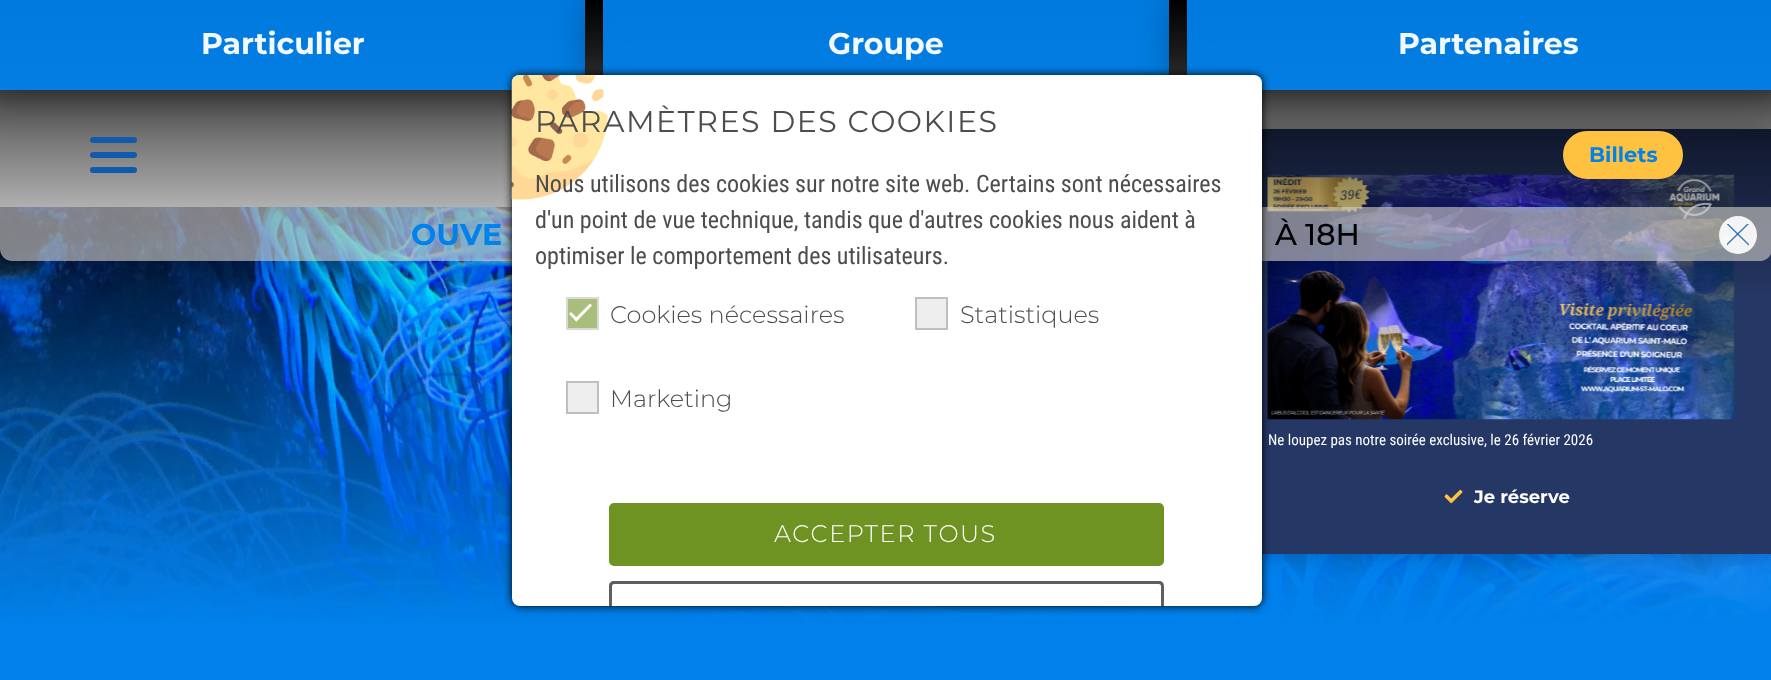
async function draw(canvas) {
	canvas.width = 1771;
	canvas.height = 680;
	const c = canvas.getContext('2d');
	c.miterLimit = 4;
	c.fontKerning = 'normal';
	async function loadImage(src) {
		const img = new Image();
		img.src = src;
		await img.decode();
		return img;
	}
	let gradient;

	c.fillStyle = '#fff';
	c.fillRect(0, 0, 1771, 680);
	c.drawImage(await loadImage('img1.png'), 0, 207, 1771, 473);
	c.fillStyle = '#00000040';
	c.filter = 'blur(11px)';
	c.beginPath();
	c.roundRect(1230, 129, 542, 425, 12);
	c.fill();
	c.filter = 'none';
	c.fillStyle = '#253765';
	c.fillRect(1262, 129, 509, 425);
	c.drawImage(await loadImage('img2.png'), 1267, 174, 468, 246);
	gradient = c.createLinearGradient(886, 0, 886, 300);
	gradient.addColorStop(0, '#000');
	gradient.addColorStop(1, '#00000000');
	c.fillStyle = gradient;
	c.fillRect(0, 0, 1771, 294);
	c.save();
	c.beginPath();
	c.moveTo(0, 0);
	c.lineTo(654, 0);
	c.lineTo(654, 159);
	c.lineTo(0, 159);
	c.closePath();
	c.moveTo(-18, 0);
	c.lineTo(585, 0);
	c.lineTo(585, 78);
	c.bezierCurveTo(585, 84.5, 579.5, 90, 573, 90);
	c.lineTo(-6, 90);
	c.bezierCurveTo(-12.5, 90, -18, 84.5, -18, 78);
	c.closePath();
	c.clip('evenodd');
	c.fillStyle = '#000000a3';
	c.filter = 'blur(22.5px)';
	c.beginPath();
	c.roundRect(-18, 0, 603, 90, 12);
	c.fill();
	c.filter = 'none';
	c.restore();
	c.fillStyle = '#0081ebf2';
	c.fillRect(0, 0, 585, 90);
	c.font = 'bold 30px Montserrat';
	c.fillStyle = '#f2f8fe';
	c.fillText('Particulier', 201, 54);
	c.save();
	c.beginPath();
	c.moveTo(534, 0);
	c.lineTo(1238, 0);
	c.lineTo(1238, 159);
	c.lineTo(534, 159);
	c.closePath();
	c.moveTo(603, 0);
	c.lineTo(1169, 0);
	c.lineTo(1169, 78);
	c.bezierCurveTo(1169, 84.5, 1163.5, 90, 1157, 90);
	c.lineTo(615, 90);
	c.bezierCurveTo(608.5, 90, 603, 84.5, 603, 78);
	c.closePath();
	c.clip('evenodd');
	c.fillStyle = '#000000a3';
	c.filter = 'blur(22.5px)';
	c.beginPath();
	c.roundRect(603, 0, 566, 90, 12);
	c.fill();
	c.filter = 'none';
	c.restore();
	c.fillStyle = '#0081ebf2';
	c.fillRect(603, 0, 566, 75);
	c.fillStyle = '#f2f8fe';
	c.fillText('Groupe', 828, 54);
	c.save();
	c.beginPath();
	c.moveTo(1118, 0);
	c.lineTo(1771, 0);
	c.lineTo(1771, 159);
	c.lineTo(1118, 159);
	c.closePath();
	c.moveTo(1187, 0);
	c.lineTo(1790, 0);
	c.lineTo(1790, 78);
	c.bezierCurveTo(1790, 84.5, 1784.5, 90, 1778, 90);
	c.lineTo(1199, 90);
	c.bezierCurveTo(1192.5, 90, 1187, 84.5, 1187, 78);
	c.closePath();
	c.clip('evenodd');
	c.fillStyle = '#000000a3';
	c.filter = 'blur(22.5px)';
	c.beginPath();
	c.roundRect(1187, 0, 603, 90, 12);
	c.fill();
	c.filter = 'none';
	c.restore();
	c.fillStyle = '#0081ebf2';
	c.fillRect(1187, 0, 584, 90);
	c.fillStyle = '#f2f8fe';
	c.fillText('Partenaires', 1398, 54);
	c.fillStyle = '#115aac';
	c.beginPath();
	c.roundRect(90, 152, 47, 6, 3);
	c.fill();
	c.beginPath();
	c.roundRect(90, 137, 47, 6, 3);
	c.fill();
	c.beginPath();
	c.roundRect(90, 167, 47, 6, 3);
	c.fill();
	c.fillStyle = '#ffc240';
	c.beginPath();
	c.roundRect(1565.5, 133.5, 115, 43, 21.5);
	c.fill();
	c.strokeStyle = '#ffc240';
	c.lineWidth = 5;
	c.stroke();
	c.font = 'bold 21px Montserrat';
	c.fillStyle = '#0081eb';
	c.fillText('Billets', 1589, 162);
	c.fillStyle = '#d6d2cb99';
	c.beginPath();
	c.moveTo(0, 207);
	c.lineTo(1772, 207);
	c.lineTo(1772, 249);
	c.bezierCurveTo(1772, 255.5, 1766.5, 261, 1760, 261);
	c.lineTo(12, 261);
	c.bezierCurveTo(5.5, 261, 0, 255.5, 0, 249);
	c.closePath();
	c.fill();
	c.font = 'bold 30px Montserrat';
	c.fillStyle = '#0081eb';
	c.fillText('OUVE', 411, 245);
	c.font = '500 30px Montserrat';
	c.fillStyle = '#000';
	c.fillText('À 18H', 1275, 245);
	c.fillStyle = '#ffffffe6';
	c.beginPath();
	c.arc(1738, 235, 19, 0, 2 * Math.PI);
	c.fill();
	c.save();
	c.beginPath();
	c.rect(1727, 224, 22, 22);
	c.clip();
	c.beginPath();
	c.moveTo(1727, 244.5);
	c.lineTo(1748.5, 223.5);
	c.strokeStyle = '#115aaccf';
	c.lineWidth = 1.4;
	c.lineCap = 'round';
	c.lineJoin = 'round';
	c.stroke();
	c.beginPath();
	c.moveTo(1748.5, 244.5);
	c.lineTo(1727, 223.5);
	c.stroke();
	c.restore();
	c.font = '15px Roboto Condensed';
	c.fillStyle = '#fff';
	c.fillText('Ne loupez pas notre soirée exclusive, le 26 février 2026', 1268, 445);
	c.drawImage(await loadImage('img3.png'), 1444, 489, 19, 15);
	c.font = 'bold 18px Montserrat';
	c.fillText('Je réserve', 1474, 503);
	c.fillStyle = '#000';
	c.filter = 'blur(4px)';
	c.beginPath();
	c.roundRect(512, 75, 750, 531, 8);
	c.fill();
	c.filter = 'none';
	c.fillStyle = '#fff';
	c.beginPath();
	c.roundRect(512, 75, 750, 531, 8);
	c.fill();
	c.drawImage(await loadImage('img4.png'), 511, 75, 97, 125);
	c.letterSpacing = '1.5px';
	c.font = '30px Montserrat';
	c.fillStyle = '#4d4d4d';
	c.fillText('PARAMÈTRES DES COOKIES', 535, 132);
	c.letterSpacing = '0px';
	c.font = '24px Roboto Condensed';
	for (const [text, x, y] of [
		['Nous utilisons des cookies sur notre site web. Certains sont nécessaires', 535, 192],
		['d\'un point de vue technique, tandis que d\'autres cookies nous aident à', 535, 228],
		['optimiser le comportement des utilisateurs.', 535, 264],
	]) {
		c.fillText(text, x, y);
	}
	c.fillStyle = '#a9be7a';
	c.beginPath();
	c.rect(567, 298, 31, 31);
	c.fill();
	c.strokeStyle = '#d9d9d9';
	c.lineWidth = 2;
	c.stroke();
	c.fillStyle = '#fff';
	c.beginPath();
	c.moveTo(590, 303.5);
	c.lineTo(592, 305.5);
	c.lineTo(576.5, 321.5);
	c.lineTo(574, 319.5);
	c.closePath();
	c.fill();
	c.beginPath();
	c.moveTo(571, 312);
	c.lineTo(578.5, 319.5);
	c.lineTo(576.5, 321.5);
	c.lineTo(569, 314);
	c.closePath();
	c.fill();
	c.font = '300 24px Montserrat';
	c.fillStyle = '#4d4d4d';
	c.fillText('Cookies nécessaires', 610, 323);
	c.fillStyle = '#eee';
	c.beginPath();
	c.rect(916, 298, 31, 31);
	c.fill();
	c.strokeStyle = '#bfbfbf';
	c.stroke();
	c.fillStyle = '#4d4d4d';
	c.fillText('Statistiques', 960, 323);
	c.fillStyle = '#eee';
	c.beginPath();
	c.rect(567, 382, 31, 31);
	c.fill();
	c.stroke();
	c.fillStyle = '#4d4d4d';
	c.fillText('Marketing', 610, 407);
	c.fillStyle = '#6f9322';
	c.beginPath();
	c.roundRect(610.5, 504.5, 552, 60, 3.5);
	c.fill();
	c.strokeStyle = '#6f9322';
	c.lineWidth = 3;
	c.stroke();
	c.letterSpacing = '1.5px';
	c.fillStyle = '#fff';
	c.fillText('ACCEPTER TOUS', 774, 542);
	c.fillStyle = '#5f5f5f';
	c.beginPath();
	c.moveTo(614, 581);
	c.bezierCurveTo(611, 581, 609, 583, 609, 586);
	c.lineTo(609, 606);
	c.lineTo(612, 606);
	c.lineTo(612, 586);
	c.bezierCurveTo(612, 585, 613, 584, 614, 584);
	c.lineTo(1159, 584);
	c.bezierCurveTo(1160, 584, 1161, 585, 1161, 586);
	c.lineTo(1161, 606);
	c.lineTo(1164, 606);
	c.lineTo(1164, 586);
	c.bezierCurveTo(1164, 583, 1162, 581, 1159, 581);
	c.closePath();
	c.fill();
}

draw(document.querySelector('canvas'));
